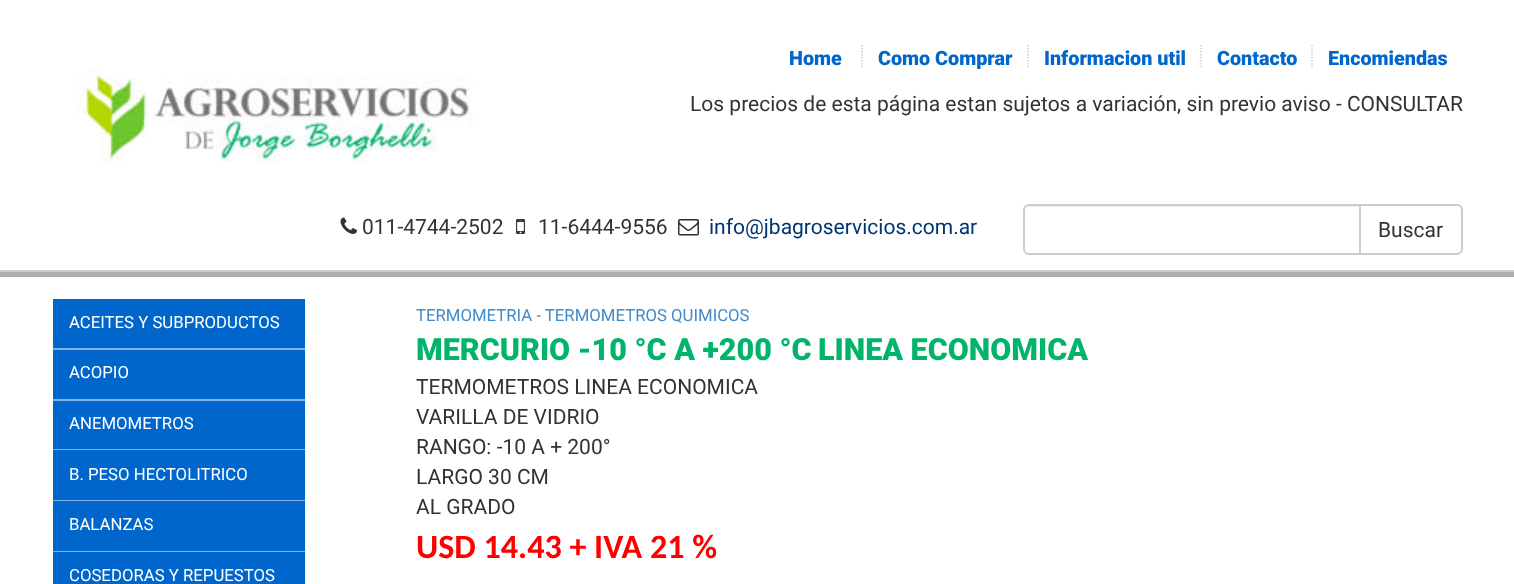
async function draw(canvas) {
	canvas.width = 1514;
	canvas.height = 584;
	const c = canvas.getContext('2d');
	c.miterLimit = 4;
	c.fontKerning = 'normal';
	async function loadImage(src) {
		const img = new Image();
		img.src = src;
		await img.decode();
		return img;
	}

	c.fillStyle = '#fff';
	c.fillRect(0, 0, 1514, 584);
	c.fillStyle = '#ccc';
	c.fillRect(0, 270, 1514, 2);
	c.drawImage(await loadImage('img1.png'), 77, 66, 396, 96);
	c.font = '900 19.75px Roboto';
	c.fillStyle = '#06c';
	c.fillText('Home', 789, 65);
	c.fillText('Como Comprar', 878, 65);
	c.beginPath();
	c.moveTo(862, 45);
	c.lineTo(862, 69);
	c.strokeStyle = '#ccc';
	c.lineWidth = 1.5;
	c.setLineDash([1.5, 1.5]);
	c.stroke();
	c.fillText('Informacion util', 1044, 65);
	c.beginPath();
	c.moveTo(1028, 45);
	c.lineTo(1028, 69);
	c.stroke();
	c.fillText('Contacto', 1217, 65);
	c.beginPath();
	c.moveTo(1201, 45);
	c.lineTo(1201, 69);
	c.stroke();
	c.fillText('Encomiendas', 1328, 65);
	c.beginPath();
	c.moveTo(1312, 45);
	c.lineTo(1312, 69);
	c.stroke();
	c.font = '21px Roboto';
	c.fillStyle = '#333';
	c.fillText('Los precios de esta página estan sujetos a variación, sin previo aviso - CONSULTAR', 690, 111);
	c.drawImage(await loadImage('img2.png'), 340, 217, 17, 17);
	c.fillText('011-4744-2502', 362, 234);
	c.drawImage(await loadImage('img3.png'), 516, 219, 9, 15);
	c.fillText('11-6444-9556', 538, 234);
	c.drawImage(await loadImage('img4.png'), 678, 219, 21, 17);
	c.fillStyle = '#003573';
	c.fillText('info@jbagroservicios.com.ar', 709, 234);
	c.fillStyle = '#ececec';
	c.beginPath();
	c.moveTo(1029, 207);
	c.lineTo(1359, 207);
	c.lineTo(1359, 206);
	c.lineTo(1030, 206);
	c.bezierCurveTo(1028, 206, 1027, 207, 1026, 208);
	c.closePath();
	c.fill();
	c.beginPath();
	c.roundRect(1024, 205, 336, 49, [5, 0, 0, 5]);
	c.lineWidth = 2;
	c.setLineDash([]);
	c.stroke();
	c.fillStyle = '#fff';
	c.beginPath();
	c.roundRect(1360, 205, 102, 49, [0, 5, 5, 0]);
	c.fill();
	c.stroke();
	c.fillStyle = '#333';
	c.fillText('Buscar', 1378, 237);
	for (const [x, y, w, h, color] of [
		[0, 272, 1514, 5, '#aeaeae'],
		[53, 350, 252, 99, '#06c'],
		[53, 299, 252, 49, '#06c'],
		[53, 348, 252, 2, '#80b3e6'],
	]) {
		c.fillStyle = color;
		c.fillRect(x, y, w, h);
	}
	c.font = '16.75px Roboto';
	c.fillStyle = '#fff';
	c.fillText('ACEITES Y SUBPRODUCTOS', 69, 328);
	c.fillStyle = '#80b3e6';
	c.fillRect(53, 399, 252, 2);
	c.fillStyle = '#fff';
	c.fillText('ACOPIO', 69, 378);
	c.fillStyle = '#80b3e6';
	c.fillRect(53, 449, 252, 1);
	c.fillStyle = '#fff';
	c.fillText('ANEMOMETROS', 69, 429);
	c.fillStyle = '#06c';
	c.fillRect(53, 450, 252, 50);
	c.fillStyle = '#80b3e6';
	c.fillRect(53, 500, 252, 1);
	c.fillStyle = '#fff';
	c.fillText('B. PESO HECTOLITRICO', 69, 480);
	c.fillStyle = '#06c';
	c.fillRect(53, 501, 252, 50);
	c.fillStyle = '#80b3e6';
	c.fillRect(53, 551, 252, 1);
	c.fillStyle = '#fff';
	c.fillText('BALANZAS', 69, 530);
	c.fillStyle = '#06c';
	c.fillRect(53, 552, 252, 32);
	c.fillStyle = '#fff';
	c.fillText('COSEDORAS Y REPUESTOS', 69, 581);
	c.fillStyle = '#428bca';
	c.fillText('TERMOMETRIA - TERMOMETROS QUIMICOS', 416, 321);
	c.font = '900 30.5px Roboto';
	c.fillStyle = '#01b46a';
	c.fillText('MERCURIO -10 °C A +200 °C', 416, 360);
	c.fillText('LINEA ECONOMICA', 818, 360);
	c.font = '21px Roboto';
	c.fillStyle = '#333';
	for (const [text, x, y] of [
		['TERMOMETROS LINEA ECONOMICA', 416, 394],
		['VARILLA DE VIDRIO', 416, 424],
		['RANGO: -10 A + 200°', 416, 454],
		['LARGO 30 CM', 416, 484],
		['AL GRADO', 416, 514],
	]) {
		c.fillText(text, x, y);
	}
	c.font = 'bold 34.1px Carlito';
	c.fillStyle = '#f00';
	c.fillText('USD 14.43 + IVA 21 %', 416, 558);
}

draw(document.querySelector('canvas'));
